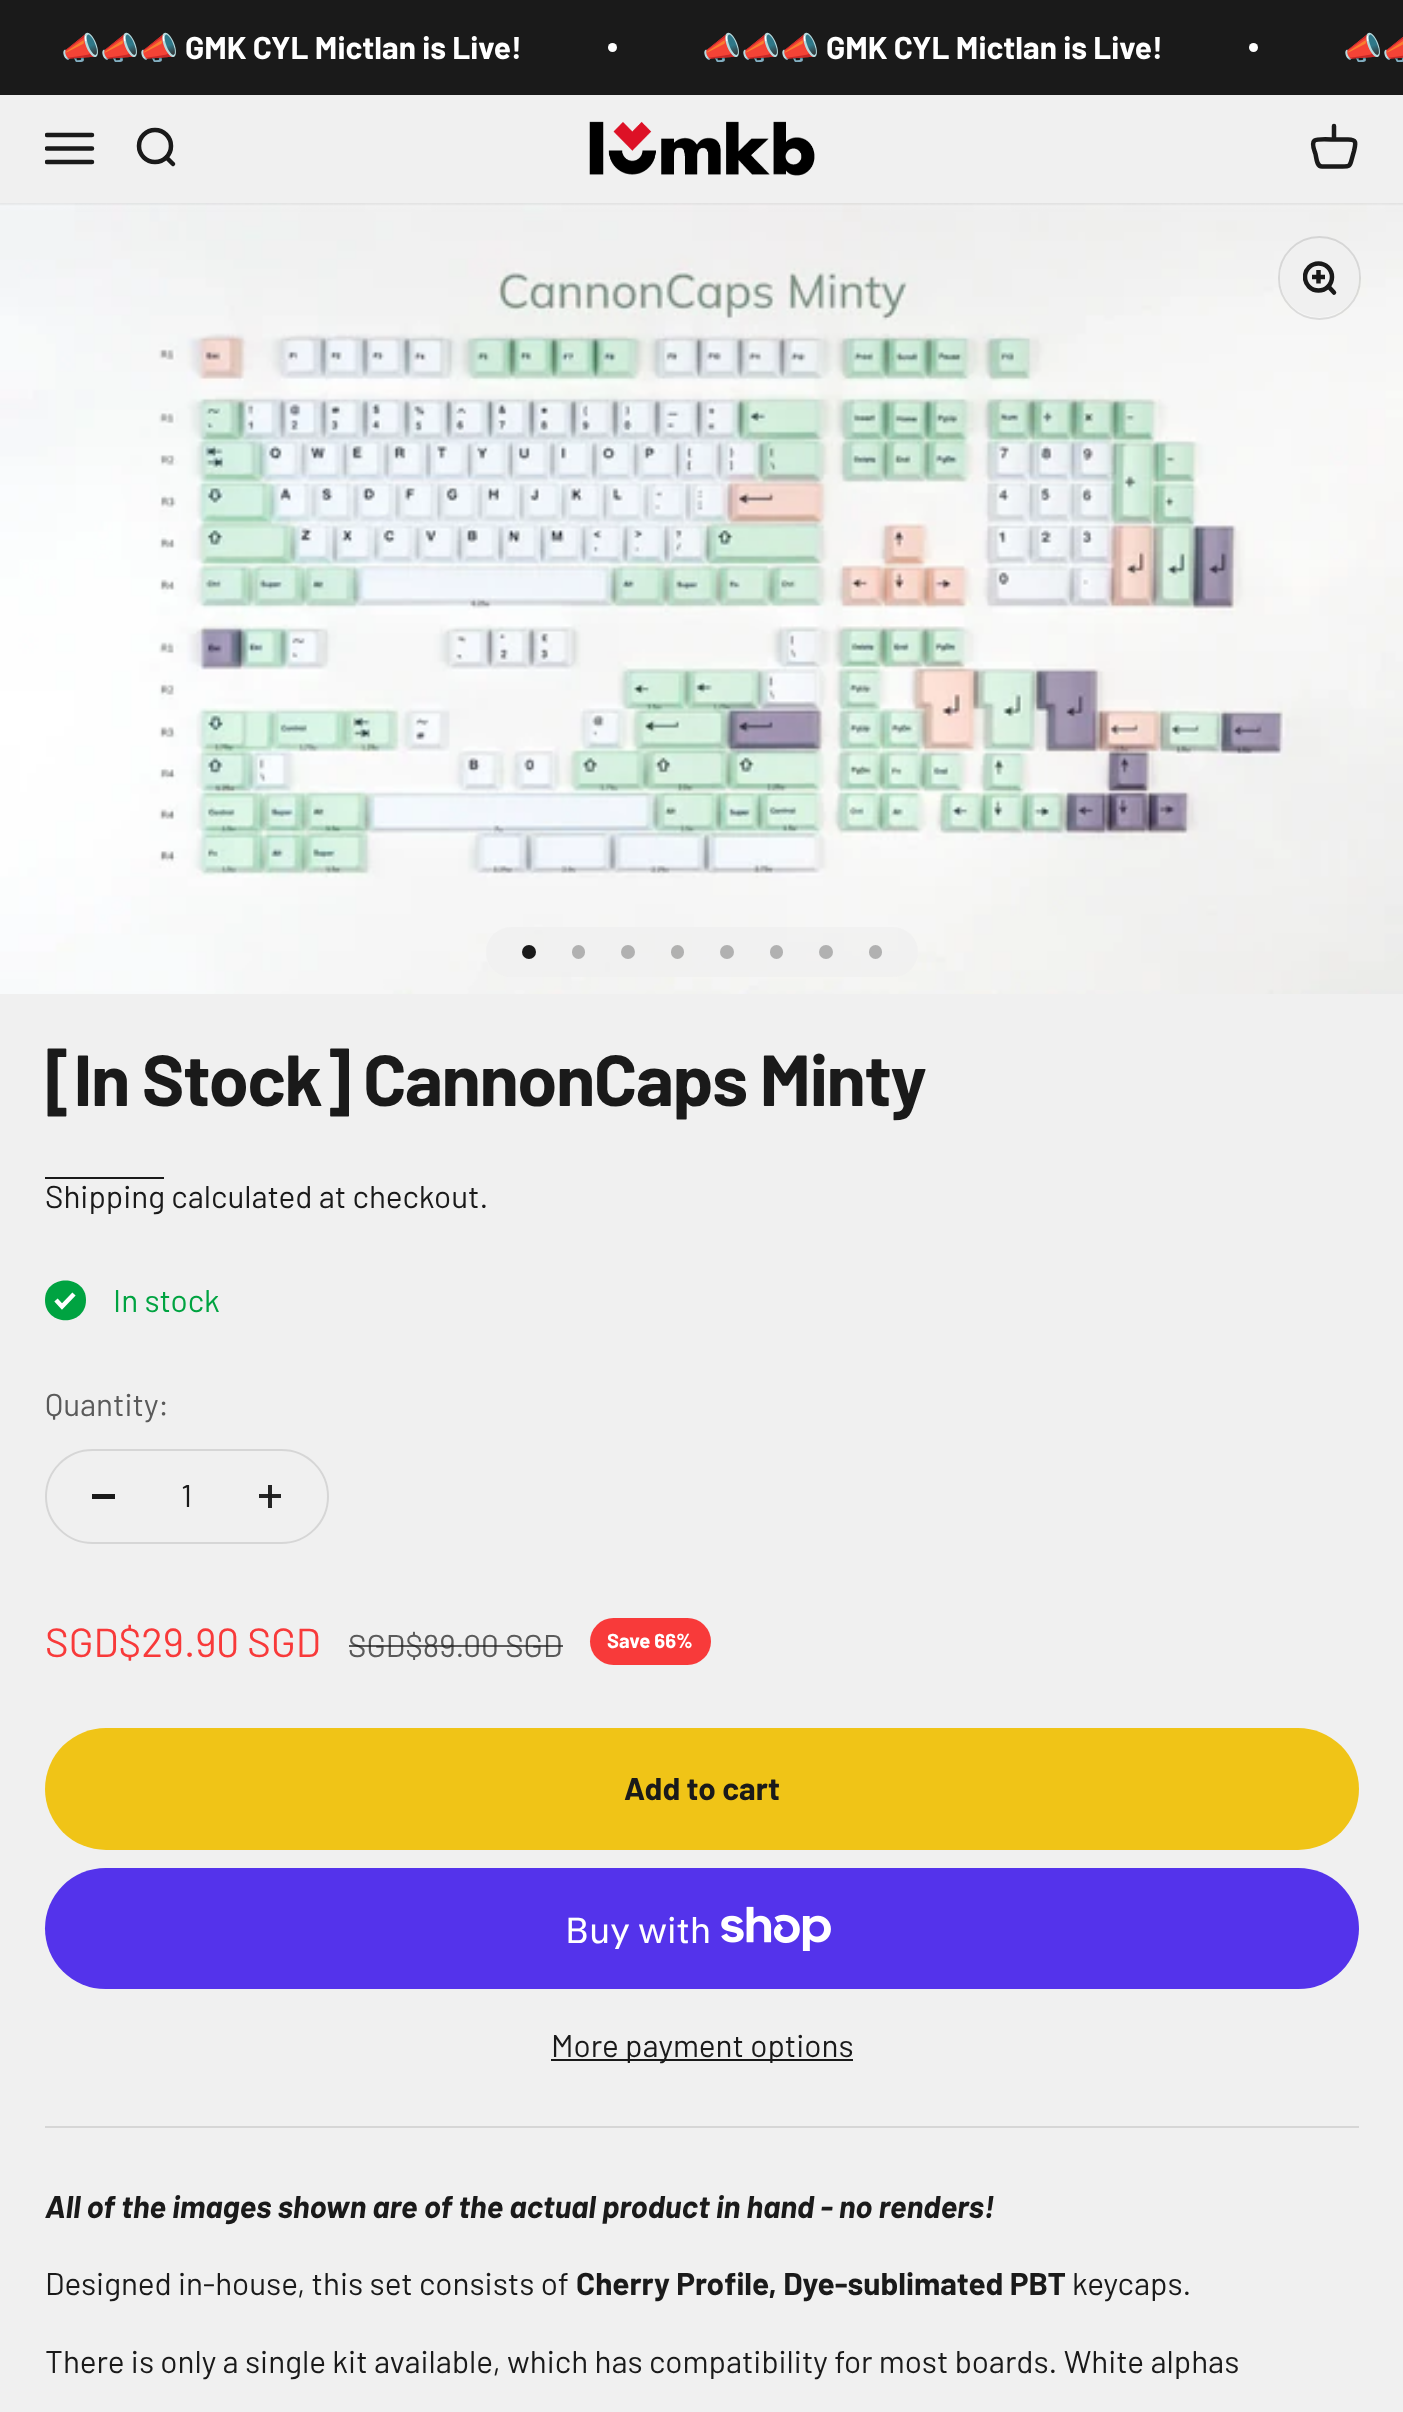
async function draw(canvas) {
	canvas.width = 1403;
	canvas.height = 2412;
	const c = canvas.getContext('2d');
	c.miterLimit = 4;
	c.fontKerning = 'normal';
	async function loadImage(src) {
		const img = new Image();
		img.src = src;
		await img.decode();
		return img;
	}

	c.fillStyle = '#f0f0f0';
	c.fillRect(0, 0, 1403, 2412);
	c.fillStyle = '#252525';
	c.fillRect(259, 1494, 22, 4);
	c.fillStyle = '#1a1a1a';
	c.fillRect(0, 0, 1403, 95);
	c.font = 'bold 31.5px Noto Color Emoji';
	c.fillStyle = '#fff';
	c.fillText('📣📣📣', 61, 59);
	c.font = 'bold 31.5px Barlow';
	c.fillText('GMK CYL Mictlan is Live!', 185, 59);
	c.beginPath();
	c.arc(612.5, 47.5, 4.5, 0, 2 * Math.PI);
	c.fill();
	c.font = 'bold 31.5px Noto Color Emoji';
	c.fillText('📣📣📣', 702, 59);
	c.font = 'bold 31.5px Barlow';
	c.fillText('GMK CYL Mictlan is Live!', 826, 59);
	c.beginPath();
	c.arc(1253.5, 47.5, 4.5, 0, 2 * Math.PI);
	c.fill();
	c.font = 'bold 31.5px Noto Color Emoji';
	c.fillText('📣📣', 1343, 59);
	c.save();
	c.beginPath();
	c.rect(45, 124, 50, 49);
	c.clip();
	c.beginPath();
	c.moveTo(47, 135);
	c.lineTo(92, 135);
	c.moveTo(47, 148.5);
	c.lineTo(92, 148.5);
	c.moveTo(47, 162);
	c.lineTo(92, 162);
	c.strokeStyle = '#1a1a1a';
	c.lineWidth = 4.5;
	c.lineCap = 'round';
	c.stroke();
	c.restore();
	c.beginPath();
	c.arc(155, 146, 16, 0, 2 * Math.PI);
	c.strokeStyle = '#1a1a1a';
	c.lineWidth = 4.5;
	c.stroke();
	c.beginPath();
	c.moveTo(166.5, 157.5);
	c.lineTo(173, 164);
	c.lineCap = 'round';
	c.lineJoin = 'round';
	c.stroke();
	c.drawImage(await loadImage('img1.png'), 589, 121, 226, 55);
	c.beginPath();
	c.moveTo(1334, 139.5);
	c.bezierCurveTo(1330.5, 139.5, 1317.5, 138.5, 1314.5, 140.5);
	c.bezierCurveTo(1311, 143.5, 1314.5, 150.5, 1315.5, 154);
	c.bezierCurveTo(1316.5, 158, 1316.5, 166.5, 1322, 166.5);
	c.lineTo(1342.5, 166.5);
	c.bezierCurveTo(1349, 166.5, 1350, 166.5, 1351.5, 160);
	c.lineTo(1354, 151);
	c.bezierCurveTo(1355.5, 143.5, 1357.5, 139.5, 1348, 139.5);
	c.closePath();
	c.moveTo(1334, 139.5);
	c.lineTo(1334, 126);
	c.stroke();
	c.drawImage(await loadImage('img2.png'), 0, 203, 1403, 791);
	c.beginPath();
	c.roundRect(1279, 237, 81, 82, 40.5);
	c.strokeStyle = '#1a1a1a1f';
	c.lineWidth = 2;
	c.lineJoin = 'miter';
	c.stroke();
	c.fillStyle = '#f0f0f0';
	c.beginPath();
	c.roundRect(1280, 239, 79, 78, 39);
	c.fill();
	c.save();
	c.beginPath();
	c.rect(1303, 261, 34, 34);
	c.clip();
	c.beginPath();
	c.arc(1318.5, 277, 13.5, 0, 2 * Math.PI);
	c.strokeStyle = '#1a1a1a';
	c.lineWidth = 4.5;
	c.stroke();
	c.restore();
	c.beginPath();
	c.moveTo(1328.5, 286.5);
	c.lineTo(1334, 292.5);
	c.strokeStyle = '#1a1a1a';
	c.lineWidth = 4.5;
	c.lineJoin = 'round';
	c.stroke();
	c.beginPath();
	c.moveTo(1318.5, 270);
	c.lineTo(1318.5, 283.5);
	c.moveTo(1312, 277);
	c.lineTo(1325, 277);
	c.lineCap = 'butt';
	c.lineJoin = 'miter';
	c.stroke();
	c.fillStyle = '#f0f0f0b3';
	c.beginPath();
	c.roundRect(486, 927, 432, 50, 25);
	c.fill();
	c.fillStyle = '#1a1a1a';
	c.beginPath();
	c.arc(529, 952, 7, 0, 2 * Math.PI);
	c.fill();
	c.fillStyle = '#b1b1b1';
	c.beginPath();
	c.roundRect(572, 945, 13, 14, 6.5);
	c.fill();
	c.beginPath();
	c.arc(628, 952, 7, 0, 2 * Math.PI);
	c.fill();
	c.fillStyle = '#b1b1b0';
	c.beginPath();
	c.roundRect(671, 945, 13, 14, 6.5);
	c.fill();
	c.fillStyle = '#b1b1b1';
	c.beginPath();
	c.arc(727, 952, 7, 0, 2 * Math.PI);
	c.fill();
	c.beginPath();
	c.roundRect(770, 945, 13, 14, 6.5);
	c.fill();
	c.beginPath();
	c.arc(826, 952, 7, 0, 2 * Math.PI);
	c.fill();
	c.beginPath();
	c.roundRect(869, 945, 13, 14, 6.5);
	c.fill();
	c.letterSpacing = '-1.45px';
	c.font = 'bold 72px Barlow';
	c.fillStyle = '#1a1a1a';
	c.fillText('[In Stock] CannonCaps Minty', 45, 1106);
	c.letterSpacing = '0px';
	c.font = '31.5px Barlow';
	c.fillText('Shipping calculated at checkout.', 45, 1208);
	c.fillRect(45, 1177, 119, 2);
	c.fillStyle = '#00a341';
	c.beginPath();
	c.moveTo(45, 1300);
	c.bezierCurveTo(45, 1274, 86, 1274, 86, 1300);
	c.bezierCurveTo(86, 1327, 45, 1327, 45, 1300);
	c.closePath();
	c.fill();
	c.beginPath();
	c.moveTo(56, 1300);
	c.lineTo(62, 1306.5);
	c.lineTo(74, 1294);
	c.strokeStyle = '#fff';
	c.stroke();
	c.fillText('In stock', 113, 1312);
	c.fillStyle = '#5a5a5a';
	c.fillText('Quantity:', 45, 1416);
	c.beginPath();
	c.roundRect(46, 1450, 282, 93, 46.5);
	c.strokeStyle = '#d6d6d6';
	c.lineWidth = 2;
	c.stroke();
	c.fillStyle = '#1a1a1a';
	c.fillRect(92, 1494, 23, 5);
	c.fillText('1', 181, 1507);
	c.fillStyle = '#252525';
	c.fillRect(268, 1485, 4, 23);
	c.fillStyle = '#1b1b1b';
	c.fillRect(268, 1494, 4, 4);
	c.font = '40.5px Barlow';
	c.fillStyle = '#f83a3a';
	c.fillText('SGD$29.90 SGD', 45, 1657);
	c.font = '31.5px Barlow';
	c.fillStyle = '#5a5a5a';
	c.fillText('SGD$89.00 SGD', 348, 1657);
	c.fillStyle = '#1a1a1ab3';
	c.fillRect(349, 1645, 214, 2);
	c.fillStyle = '#f83a3a';
	c.beginPath();
	c.roundRect(590, 1618, 121, 47, 23.5);
	c.fill();
	c.font = 'bold 20.25px Barlow';
	c.fillStyle = '#fff';
	c.fillText('Save 66%', 607, 1648);
	c.fillStyle = '#f0c417';
	c.beginPath();
	c.roundRect(45, 1728, 1314, 122, 61);
	c.fill();
	c.font = 'bold 31.5px Barlow';
	c.fillStyle = '#1a1a1a';
	c.fillText('Add to cart', 624, 1800);
	c.fillStyle = '#5433eb';
	c.beginPath();
	c.roundRect(45, 1868, 1314, 121, 60.5);
	c.fill();
	c.font = '36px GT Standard';
	c.fillStyle = '#fff';
	c.fillText('Buy with', 565, 1943);
	c.drawImage(await loadImage('img3.png'), 721, 1906, 110, 45);
	c.fillStyle = '#1a1a1a';
	c.fillRect(551, 2059, 302, 2);
	c.font = '31.5px Barlow';
	c.fillText('More payment options', 551, 2057);
	c.fillStyle = '#d6d6d6';
	c.fillRect(45, 2126, 1314, 2);
	c.font = 'italic bold 31.5px Barlow';
	c.fillStyle = '#1a1a1a';
	c.fillText('All of the images shown are of the actual product in hand - no renders!', 45, 2218);
	c.font = '31.5px Barlow';
	c.fillText('Designed in-house', 45, 2295);
	c.fillText(', this set consists of', 297, 2295);
	c.font = 'bold 31.5px Barlow';
	c.fillText('Cherry Profile, Dye-sublimated PBT', 576, 2295);
	c.font = '31.5px Barlow';
	c.fillText('keycaps.', 1072, 2295);
	c.fillText('There is only a single kit available, which has compatibility for most boards. White alphas', 45, 2373);
}

draw(document.querySelector('canvas'));
